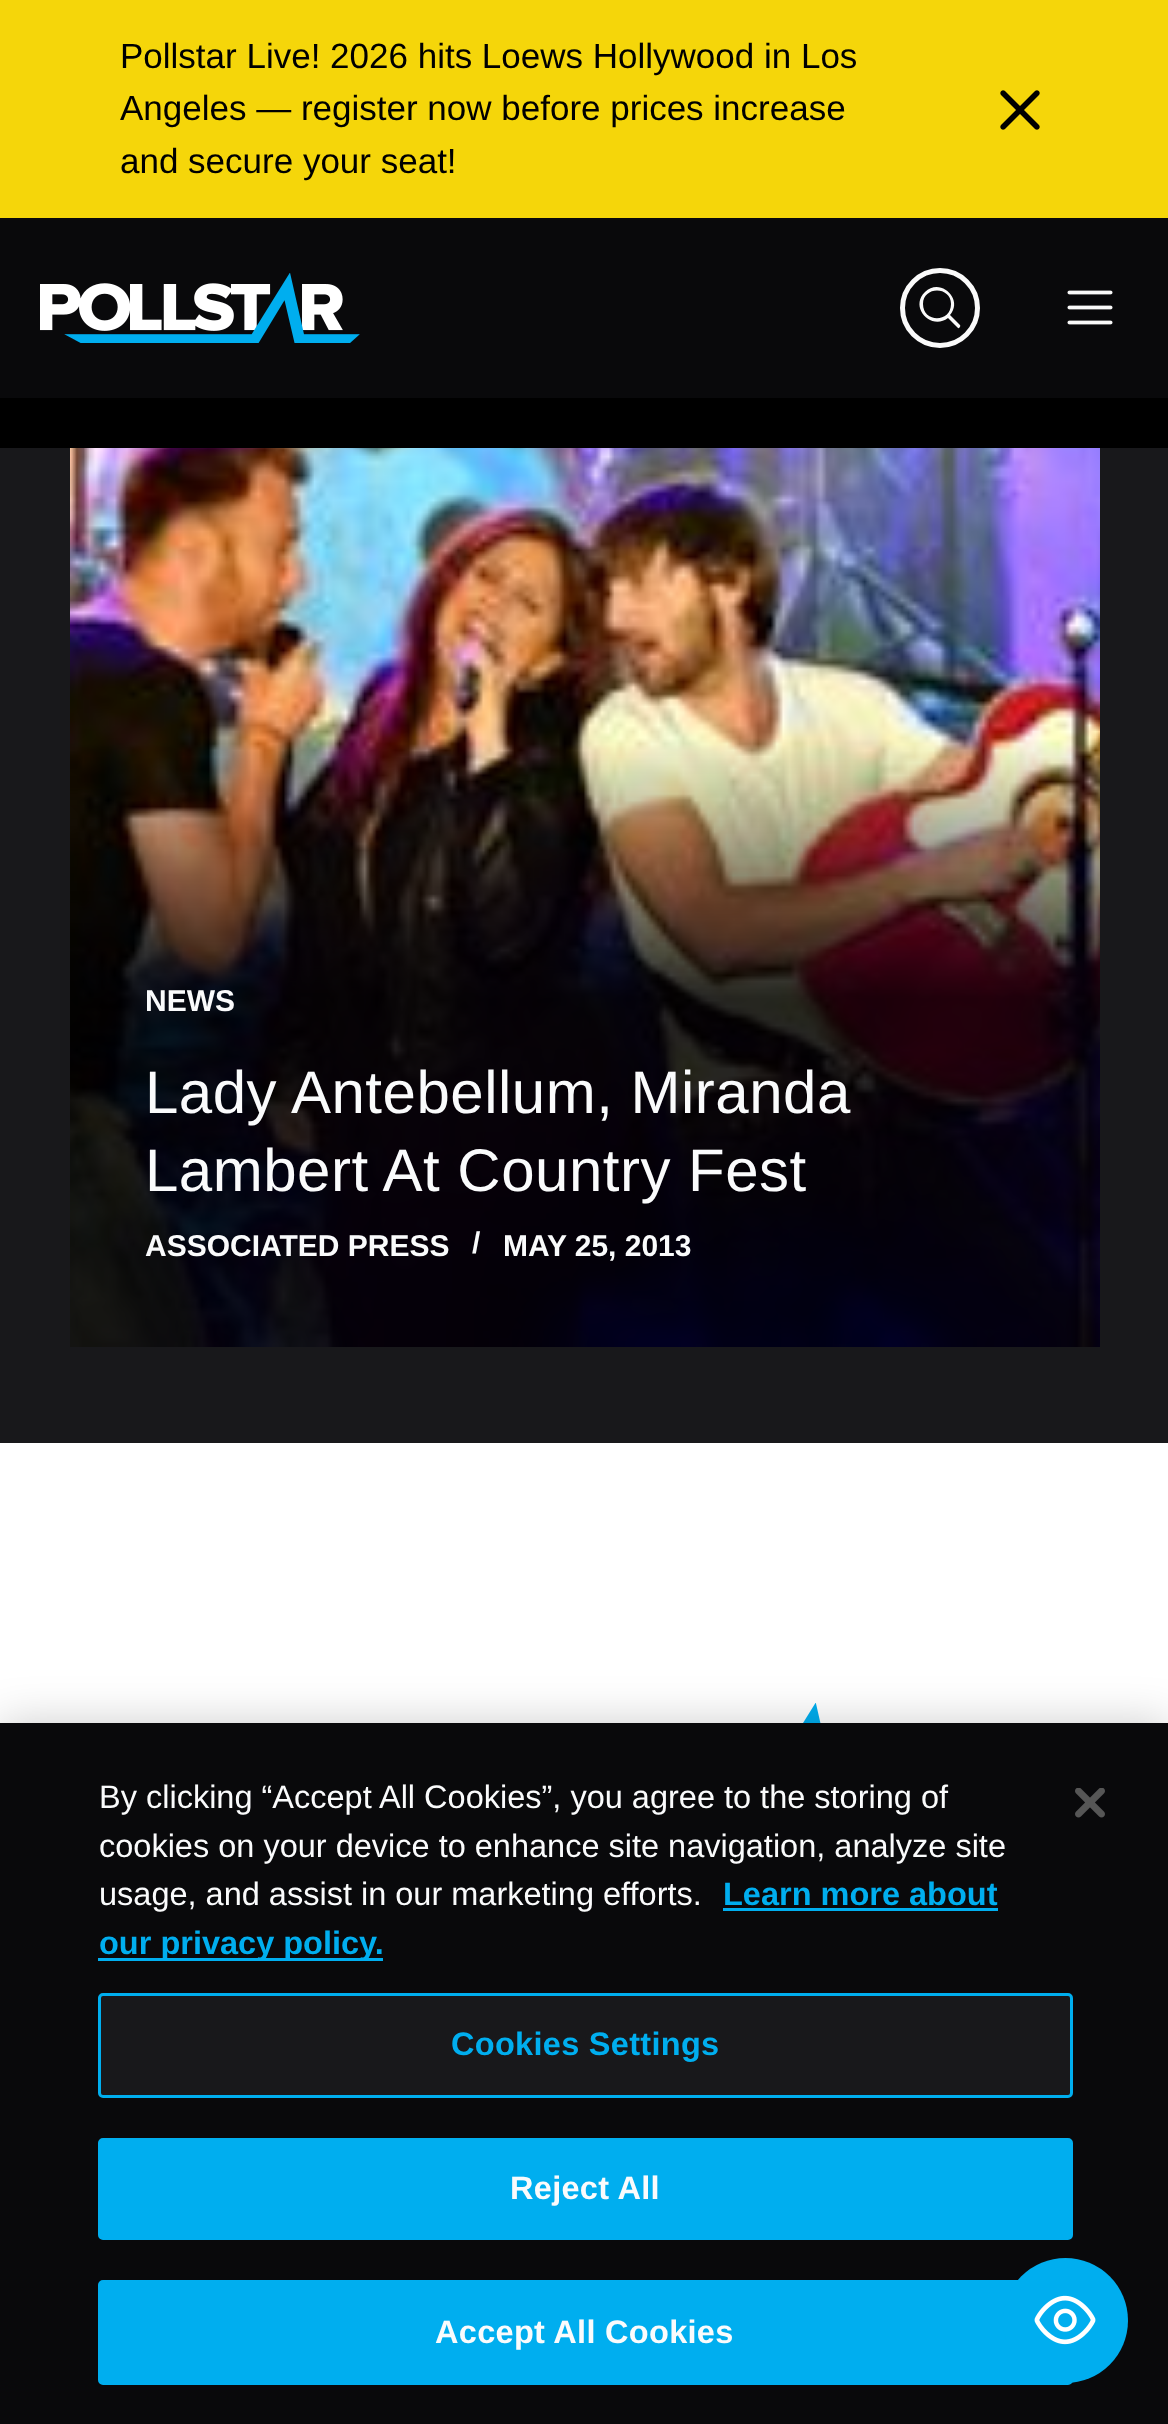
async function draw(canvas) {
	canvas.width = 1168;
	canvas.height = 2424;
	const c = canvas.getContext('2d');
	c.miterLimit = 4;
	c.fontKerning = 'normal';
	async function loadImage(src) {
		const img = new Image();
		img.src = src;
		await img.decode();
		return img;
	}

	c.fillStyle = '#18181b';
	c.fillRect(0, 0, 1168, 2424);
	c.fillStyle = '#000';
	c.fillRect(0, 398, 1168, 50);
	c.fillStyle = '#f5d60a';
	c.fillRect(0, 0, 1168, 218);
	c.font = '35px Liberation Sans';
	c.fillStyle = '#000';
	for (const [text, x, y] of [
		['Pollstar Live! 2026 hits Loews Hollywood in Los', 120, 68],
		['Angeles — register now before prices increase', 120, 120],
		['and secure your seat!', 120, 173],
	]) {
		c.fillText(text, x, y);
	}
	c.drawImage(await loadImage('img1.png'), 1000, 90, 40, 40);
	c.fillStyle = '#09090b';
	c.fillRect(0, 218, 1168, 180);
	c.drawImage(await loadImage('img2.png'), 40, 273, 320, 70);
	c.beginPath();
	c.arc(940, 308, 37.5, 0, 2 * Math.PI);
	c.strokeStyle = '#fafafa';
	c.lineWidth = 5;
	c.stroke();
	c.fillStyle = '#fafafa';
	c.beginPath();
	c.moveTo(960, 325);
	c.lineTo(950, 315);
	c.bezierCurveTo(964, 299, 940, 277, 925, 292);
	c.bezierCurveTo(909, 307, 931, 331, 948, 318);
	c.lineTo(958, 328);
	c.bezierCurveTo(959, 329, 961, 326, 960, 325);
	c.closePath();
	c.moveTo(923, 304);
	c.bezierCurveTo(923, 286, 951, 286, 951, 304);
	c.bezierCurveTo(951, 323, 923, 323, 923, 304);
	c.closePath();
	c.fill();
	c.drawImage(await loadImage('img3.png'), 1067, 290, 46, 35);
	c.drawImage(await loadImage('img4.png'), 70, 448, 1030, 899);
	c.font = 'bold 30px Liberation Sans';
	c.fillStyle = '#fafbfc';
	c.fillText('NEWS', 145, 1011);
	c.letterSpacing = '0.5px';
	c.font = '60px Liberation Sans';
	c.fillText('Lady Antebellum, Miranda', 145, 1113);
	c.fillText('Lambert At Country Fest', 145, 1191);
	c.letterSpacing = '0px';
	c.font = 'bold 30px Liberation Sans';
	for (const [text, x, y] of [
		['ASSOCIATED PRESS', 145, 1256],
		['/', 472, 1253],
		['MAY 25, 2013', 503, 1256],
	]) {
		c.fillText(text, x, y);
	}
	c.fillStyle = '#fff';
	c.fillRect(0, 1443, 1168, 280);
	c.drawImage(await loadImage('img5.png'), 803, 1703, 18, 20);
	c.beginPath();
	c.arc(883, 1740, 25, 0, 2 * Math.PI);
	c.fill();
	c.fillStyle = '#00000033';
	c.filter = 'blur(22.5px)';
	c.beginPath();
	c.rect(0, 1723, 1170, 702);
	c.fill();
	c.filter = 'none';
	c.fillStyle = '#09090b';
	c.fillRect(0, 1723, 1168, 701);
	c.font = '32.5px Liberation Sans';
	c.fillStyle = '#fafbfc';
	for (const [text, x, y] of [
		['By clicking “Accept All Cookies”, you agree to the storing of', 99, 1808],
		['cookies on your device to enhance site navigation, analyze site', 99, 1857],
		['usage, and assist in our marketing efforts.', 99, 1905],
	]) {
		c.fillText(text, x, y);
	}
	c.font = 'bold 32.5px Liberation Sans';
	c.fillStyle = '#00aeef';
	c.fillText('Learn more about', 723, 1905);
	c.fillRect(723, 1908, 275, 3);
	c.fillRect(98, 1958, 285, 3);
	c.fillText('our privacy policy.', 99, 1954);
	c.fillStyle = '#18181b';
	c.beginPath();
	c.roundRect(99.5, 1994.5, 972, 102, 3.5);
	c.fill();
	c.strokeStyle = '#00aeef';
	c.lineWidth = 3;
	c.stroke();
	c.letterSpacing = '0.3px';
	c.fillStyle = '#00aeef';
	c.fillText('Cookies Settings', 451, 2055);
	c.beginPath();
	c.roundRect(99.5, 2139.5, 972, 99, 3.5);
	c.fill();
	c.stroke();
	c.fillStyle = '#fafbfc';
	c.fillText('Reject All', 510, 2199);
	c.fillStyle = '#00aeef';
	c.beginPath();
	c.roundRect(99.5, 2281.5, 972, 102, 3.5);
	c.fill();
	c.stroke();
	c.fillStyle = '#fafbfc';
	c.fillText('Accept All Cookies', 435, 2343);
	c.drawImage(await loadImage('img6.png'), 1075, 1788, 30, 30);
	c.fillStyle = '#00aeef';
	c.beginPath();
	c.arc(1065.5, 2320.5, 62.5, 0, 2 * Math.PI);
	c.fill();
	c.drawImage(await loadImage('img7.png'), 1034, 2295, 62, 50);
}

draw(document.querySelector('canvas'));
